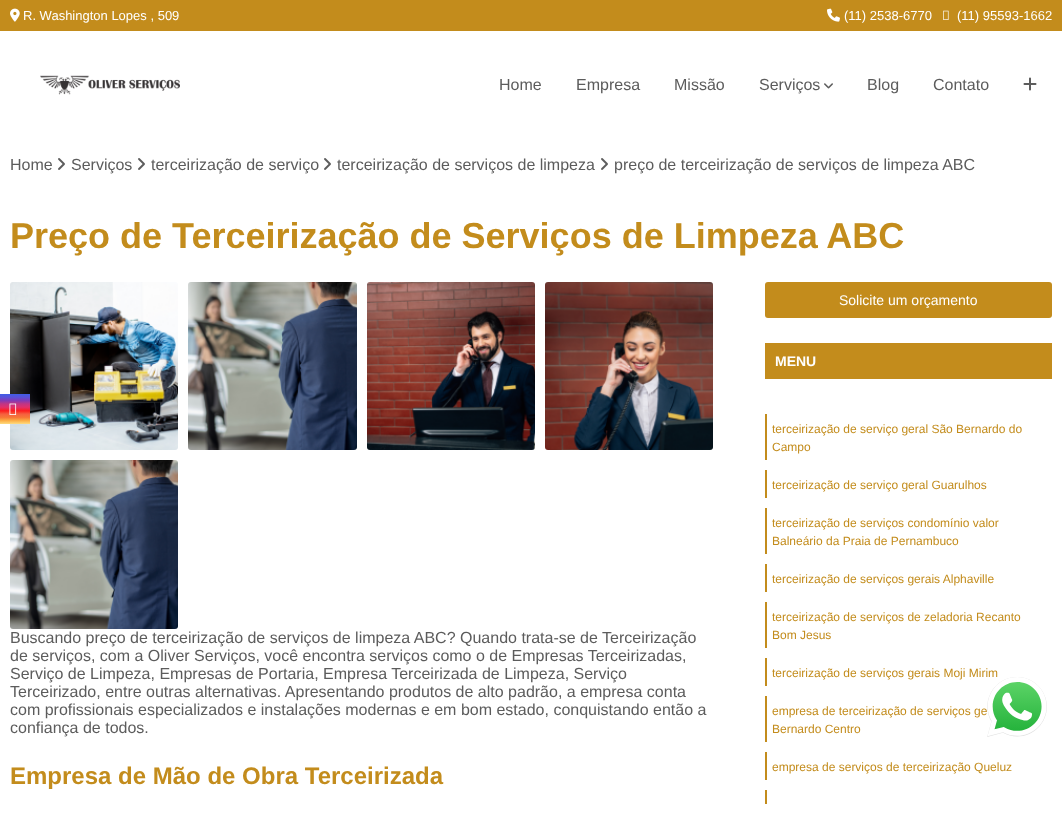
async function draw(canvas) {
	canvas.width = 1062;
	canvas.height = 817;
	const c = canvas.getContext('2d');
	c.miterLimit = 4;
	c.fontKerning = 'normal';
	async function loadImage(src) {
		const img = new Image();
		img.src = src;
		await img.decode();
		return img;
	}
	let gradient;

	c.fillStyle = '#fff';
	c.fillRect(0, 0, 1062, 817);
	c.fillStyle = '#c38c1c';
	c.fillRect(0, 0, 1062, 31);
	c.drawImage(await loadImage('img1.png'), 10, 8, 10, 14);
	c.font = '13px Liberation Sans';
	c.fillStyle = '#fff';
	c.fillText('R. Washington Lopes , 509', 23, 20);
	c.drawImage(await loadImage('img2.png'), 827, 8, 13, 14);
	c.fillText('(11) 2538-6770', 844, 20);
	c.drawImage(await loadImage('img3.png'), 943, 10, 6, 10);
	c.fillText('(11) 95593-1662', 957, 20);
	c.drawImage(await loadImage('img4.png'), 40, 75, 140, 20);
	c.font = '16px Liberation Sans';
	c.fillStyle = '#5c5c5c';
	for (const [text, x, y] of [
		['Home', 499, 90],
		['Empresa', 576, 90],
		['Missão', 674, 90],
		['Serviços', 759, 90],
	]) {
		c.fillText(text, x, y);
	}
	c.drawImage(await loadImage('img5.png'), 824, 83, 9, 6);
	c.fillText('Blog', 867, 90);
	c.fillText('Contato', 933, 90);
	c.drawImage(await loadImage('img6.png'), 1023, 77, 14, 14);
	c.fillText('Home', 10, 170);
	c.drawImage(await loadImage('img7.png'), 58, 158, 7, 12);
	c.fillText('Serviços', 71, 170);
	c.drawImage(await loadImage('img7.png'), 138, 158, 7, 12);
	c.fillText('terceirização de serviço', 151, 170);
	c.drawImage(await loadImage('img7.png'), 324, 158, 7, 12);
	c.fillText('terceirização de serviços de limpeza', 337, 170);
	c.drawImage(await loadImage('img7.png'), 601, 158, 7, 12);
	c.fillText('preço de terceirização de serviços de limpeza ABC', 614, 170);
	c.font = 'bold 36px Liberation Sans';
	c.fillStyle = '#c38c1c';
	c.fillText('Preço de Terceirização de Serviços de Limpeza ABC', 10, 248);
	c.drawImage(await loadImage('img8.png'), 10, 282, 168, 168);
	c.drawImage(await loadImage('img9.png'), 188, 282, 169, 168);
	c.drawImage(await loadImage('img10.png'), 367, 282, 168, 168);
	c.drawImage(await loadImage('img11.png'), 545, 282, 168, 168);
	c.drawImage(await loadImage('img12.png'), 10, 460, 168, 169);
	c.font = '16px Liberation Sans';
	c.fillStyle = '#5c5c5c';
	for (const [text, x, y] of [
		['Buscando preço de terceirização de serviços de limpeza ABC? Quando trata-se de Terceirização', 10, 643],
		['de serviços, com a Oliver Serviços, você encontra serviços como o de Empresas Terceirizadas,', 10, 661],
		['Serviço de Limpeza, Empresas de Portaria, Empresa Terceirizada de Limpeza, Serviço', 10, 679],
		['Terceirizado, entre outras alternativas. Apresentando produtos de alto padrão, a empresa conta', 10, 697],
		['com profissionais especializados e instalações modernas e em bom estado, conquistando então a', 10, 715],
		['confiança de todos.', 10, 733],
	]) {
		c.fillText(text, x, y);
	}
	c.font = 'bold 24px Liberation Sans';
	c.fillStyle = '#c38c1c';
	c.fillText('Empresa de Mão de Obra Terceirizada', 10, 784);
	c.beginPath();
	c.roundRect(765, 282, 287, 36, 3);
	c.fill();
	c.font = '14px Liberation Sans';
	c.fillStyle = '#fff';
	c.fillText('Solicite um orçamento', 839, 305);
	c.fillStyle = '#c38c1c';
	c.fillRect(765, 343, 287, 36);
	c.font = 'bold 14px Liberation Sans';
	c.fillStyle = '#fff';
	c.fillText('MENU', 775, 366);
	c.fillStyle = '#c38c1c';
	c.fillRect(765, 414, 2, 46);
	c.font = '12px Liberation Sans';
	c.fillText('terceirização de serviço geral São Bernardo do', 772, 433);
	c.fillText('Campo', 772, 451);
	c.fillRect(765, 470, 2, 28);
	c.fillText('terceirização de serviço geral Guarulhos', 772, 489);
	c.fillRect(765, 508, 2, 46);
	c.fillText('terceirização de serviços condomínio valor', 772, 527);
	c.fillText('Balneário da Praia de Pernambuco', 772, 545);
	c.fillRect(765, 564, 2, 28);
	c.fillText('terceirização de serviços gerais Alphaville', 772, 583);
	c.fillRect(765, 602, 2, 46);
	c.fillText('terceirização de serviços de zeladoria Recanto', 772, 621);
	c.fillText('Bom Jesus', 772, 639);
	c.fillRect(765, 658, 2, 28);
	c.fillText('terceirização de serviços gerais Moji Mirim', 772, 677);
	c.fillRect(765, 696, 2, 46);
	c.fillText('empresa de terceirização de serviços ge', 772, 715);
	c.fillText('Bernardo Centro', 772, 733);
	c.fillRect(765, 752, 2, 28);
	c.fillText('empresa de serviços de terceirização Queluz', 772, 771);
	c.fillRect(765, 790, 2, 14);
	gradient = c.createLinearGradient(15, 394, 15, 424);
	gradient.addColorStop(0, '#405de6');
	gradient.addColorStop(0.11, '#5b51d8');
	gradient.addColorStop(0.22, '#833ab4');
	gradient.addColorStop(0.33, '#c13584');
	gradient.addColorStop(0.44, '#e1306c');
	gradient.addColorStop(0.56, '#fd1d1d');
	gradient.addColorStop(0.67, '#f56040');
	gradient.addColorStop(0.78, '#f77737');
	gradient.addColorStop(0.89, '#fcaf45');
	gradient.addColorStop(1, '#ffdc80');
	c.fillStyle = gradient;
	c.fillRect(0, 394, 30, 30);
	c.drawImage(await loadImage('img13.png'), 9, 403, 8, 12);
	c.drawImage(await loadImage('img14.png'), 987, 677, 60, 60);
}

draw(document.querySelector('canvas'));
